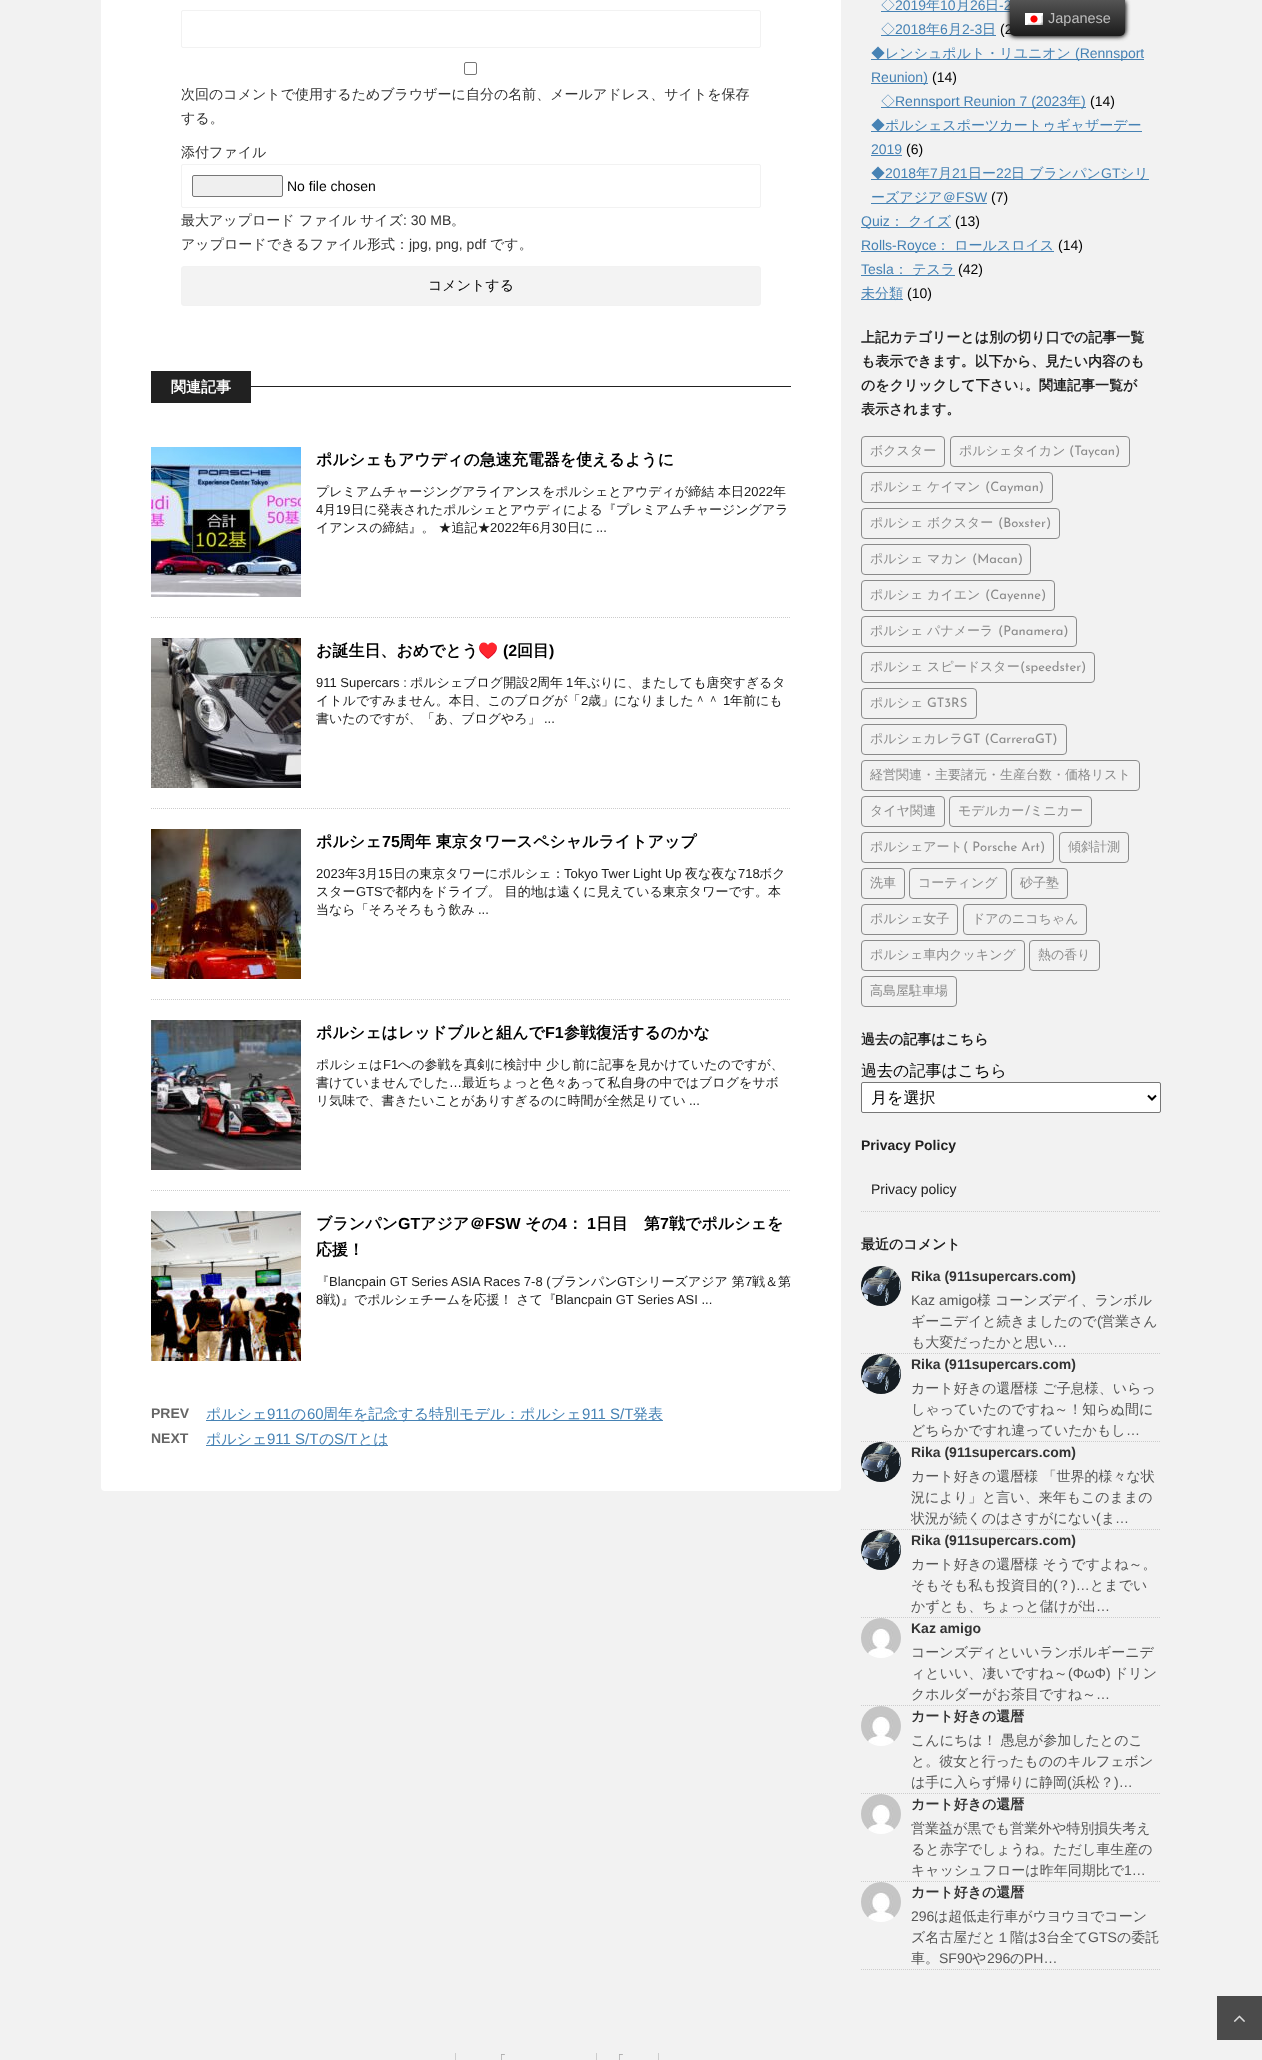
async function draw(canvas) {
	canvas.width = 1262;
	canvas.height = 2060;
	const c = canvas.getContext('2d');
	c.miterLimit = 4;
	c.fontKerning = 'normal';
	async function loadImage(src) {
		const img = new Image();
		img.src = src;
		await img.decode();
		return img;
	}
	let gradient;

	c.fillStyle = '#f2f2f2';
	c.fillRect(0, 0, 1262, 2060);
	c.fillStyle = '#fff';
	c.beginPath();
	c.roundRect(101, -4, 740, 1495, 4);
	c.fill();
	c.beginPath();
	c.roundRect(181.5, 10.5, 579, 37, 1.5);
	c.strokeStyle = '#f2f2f2';
	c.stroke();
	c.beginPath();
	c.roundRect(464.5, 62.5, 12, 12, 1.5);
	c.strokeStyle = '#767676';
	c.stroke();
	c.font = '500 14px WenQuanYi Zen Hei';
	c.fillStyle = '#333';
	for (const [text, x, y] of [
		['次回のコメントで使用するためブラウザーに自分の名前、メールアドレス、サイトを保存', 181, 99],
		['する。', 181, 123],
		['添付ファイル', 181, 157],
	]) {
		c.fillText(text, x, y);
	}
	c.beginPath();
	c.roundRect(181.5, 164.5, 579, 43, 1.5);
	c.strokeStyle = '#f2f2f2';
	c.stroke();
	c.fillStyle = '#efefef';
	c.beginPath();
	c.roundRect(192.5, 175.5, 90, 21, 1.5);
	c.fill();
	c.strokeStyle = '#767676';
	c.stroke();
	c.font = '14px Liberation Sans';
	c.fillStyle = '#000';
	c.fillText('No file chosen', 287, 191);
	c.font = '500 14px WenQuanYi Zen Hei';
	c.fillStyle = '#333';
	for (const [text, x, y] of [
		['最大アップロード', 181, 225],
		['ファイル', 299, 225],
		['サイズ', 360, 225],
	]) {
		c.fillText(text, x, y);
	}
	c.font = '14px Liberation Sans';
	c.fillText(': 30 MB', 403, 225);
	c.font = '500 14px WenQuanYi Zen Hei';
	c.fillText('。', 451, 225);
	c.fillText('アップロードできるファイル形式：', 181, 249);
	c.font = '14px Liberation Sans';
	c.fillText('jpg, png, pdf', 409, 249);
	c.font = '500 14px WenQuanYi Zen Hei';
	c.fillText('です。', 490, 249);
	c.fillStyle = '#f3f3f3';
	c.beginPath();
	c.roundRect(181.5, 266.5, 579, 39, 2.5);
	c.fill();
	c.strokeStyle = '#f2f2f2';
	c.stroke();
	c.fillStyle = '#000';
	c.fillText('コメントする', 428, 290);
	c.fillStyle = '#212121';
	c.fillRect(251, 386, 540, 1);
	c.fillRect(151, 371, 100, 32);
	c.font = 'bold 15px WenQuanYi Zen Hei';
	c.fillStyle = '#fff';
	c.fillText('関連記事', 171, 392);
	c.beginPath();
	c.moveTo(151, 617.5);
	c.lineTo(791, 617.5);
	c.strokeStyle = '#ccc';
	c.setLineDash([1, 1]);
	c.stroke();
	c.drawImage(await loadImage('img1.png'), 151, 447, 150, 150);
	c.font = 'bold 16px WenQuanYi Zen Hei';
	c.fillStyle = '#000';
	c.fillText('ポルシェもアウディの急速充電器を使えるように', 316, 465);
	c.font = '500 13px WenQuanYi Zen Hei';
	c.fillStyle = '#1a1a1a';
	c.fillText('プレミアムチャージングアライアンスをポルシェとアウディが締結 本日', 316, 496);
	c.font = '13px Liberation Sans';
	c.fillText('2022', 744, 496);
	c.font = '500 13px WenQuanYi Zen Hei';
	c.fillText('年', 773, 496);
	c.font = '13px Liberation Sans';
	c.fillText('4', 316, 514);
	c.font = '500 13px WenQuanYi Zen Hei';
	c.fillText('月', 323, 514);
	c.font = '13px Liberation Sans';
	c.fillText('19', 336, 514);
	c.font = '500 13px WenQuanYi Zen Hei';
	c.fillText('日に発表されたポルシェとアウディによる『プレミアムチャージングアラ', 351, 514);
	c.fillText('イアンスの締結』。 ★追記★', 316, 532);
	c.font = '13px Liberation Sans';
	c.fillText('2022', 490, 532);
	c.font = '500 13px WenQuanYi Zen Hei';
	c.fillText('年', 519, 532);
	c.font = '13px Liberation Sans';
	c.fillText('6', 532, 532);
	c.font = '500 13px WenQuanYi Zen Hei';
	c.fillText('月', 539, 532);
	c.font = '13px Liberation Sans';
	c.fillText('30', 552, 532);
	c.font = '500 13px WenQuanYi Zen Hei';
	c.fillText('日に', 567, 532);
	c.font = '13px Liberation Sans';
	c.fillText('...', 596, 532);
	c.beginPath();
	c.moveTo(151, 808.5);
	c.lineTo(791, 808.5);
	c.stroke();
	c.drawImage(await loadImage('img2.png'), 151, 638, 150, 150);
	c.font = 'bold 16px WenQuanYi Zen Hei';
	c.fillStyle = '#000';
	c.fillText('お誕生日、おめでとう', 316, 656);
	c.font = 'bold 16px Noto Color Emoji';
	c.fillText('♥️', 478, 656);
	c.font = 'bold 16px Liberation Sans';
	c.fillText('(2', 503, 656);
	c.font = 'bold 16px WenQuanYi Zen Hei';
	c.fillText('回目', 517, 656);
	c.font = 'bold 16px Liberation Sans';
	c.fillText(')', 549, 656);
	c.font = '13px Liberation Sans';
	c.fillStyle = '#1a1a1a';
	c.fillText('911 Supercars :', 316, 687);
	c.font = '500 13px WenQuanYi Zen Hei';
	c.fillText('ポルシェブログ開設', 410, 687);
	c.font = '13px Liberation Sans';
	c.fillText('2', 530, 687);
	c.font = '500 13px WenQuanYi Zen Hei';
	c.fillText('周年', 537, 687);
	c.font = '13px Liberation Sans';
	c.fillText('1', 566, 687);
	c.font = '500 13px WenQuanYi Zen Hei';
	c.fillText('年ぶりに、またしても唐突すぎるタ', 574, 687);
	c.fillText('イトルですみません。本日、このブログが「', 316, 705);
	c.font = '13px Liberation Sans';
	c.fillText('2', 581, 705);
	c.font = '500 13px WenQuanYi Zen Hei';
	c.fillText('歳」になりました＾＾', 588, 705);
	c.font = '13px Liberation Sans';
	c.fillText('1', 723, 705);
	c.font = '500 13px WenQuanYi Zen Hei';
	c.fillText('年前にも', 730, 705);
	c.fillText('書いたのですが、「あ、ブログやろ」', 316, 723);
	c.font = '13px Liberation Sans';
	c.fillText('...', 544, 723);
	c.beginPath();
	c.moveTo(151, 999.5);
	c.lineTo(791, 999.5);
	c.stroke();
	c.drawImage(await loadImage('img3.png'), 151, 829, 150, 150);
	c.font = 'bold 16px WenQuanYi Zen Hei';
	c.fillStyle = '#000';
	c.fillText('ポルシェ', 316, 847);
	c.font = 'bold 16px Liberation Sans';
	c.fillText('75', 382, 847);
	c.font = 'bold 16px WenQuanYi Zen Hei';
	c.fillText('周年 東京タワースペシャルライトアップ', 399, 847);
	c.font = '13px Liberation Sans';
	c.fillStyle = '#1a1a1a';
	c.fillText('2023', 316, 878);
	c.font = '500 13px WenQuanYi Zen Hei';
	c.fillText('年', 345, 878);
	c.font = '13px Liberation Sans';
	c.fillText('3', 358, 878);
	c.font = '500 13px WenQuanYi Zen Hei';
	c.fillText('月', 365, 878);
	c.font = '13px Liberation Sans';
	c.fillText('15', 378, 878);
	c.font = '500 13px WenQuanYi Zen Hei';
	c.fillText('日の東京タワーにポルシェ：', 393, 878);
	c.font = '13px Liberation Sans';
	c.fillText('Tokyo Twer Light Up', 564, 878);
	c.font = '500 13px WenQuanYi Zen Hei';
	c.fillText('夜な夜な', 685, 878);
	c.font = '13px Liberation Sans';
	c.fillText('718', 738, 878);
	c.font = '500 13px WenQuanYi Zen Hei';
	c.fillText('ボク', 759, 878);
	c.fillText('スター', 316, 896);
	c.font = '13px Liberation Sans';
	c.fillText('GTS', 356, 896);
	c.font = '500 13px WenQuanYi Zen Hei';
	c.fillText('で都内をドライブ。 目的地は遠くに見えている東京タワーです。本', 382, 896);
	c.fillText('当なら「そろそろもう飲み', 316, 914);
	c.font = '13px Liberation Sans';
	c.fillText('...', 478, 914);
	c.beginPath();
	c.moveTo(151, 1190.5);
	c.lineTo(791, 1190.5);
	c.stroke();
	c.drawImage(await loadImage('img4.png'), 151, 1020, 150, 150);
	c.font = 'bold 16px WenQuanYi Zen Hei';
	c.fillStyle = '#000';
	c.fillText('ポルシェはレッドブルと組んで', 316, 1038);
	c.font = 'bold 16px Liberation Sans';
	c.fillText('F1', 545, 1038);
	c.font = 'bold 16px WenQuanYi Zen Hei';
	c.fillText('参戦復活するのかな', 564, 1038);
	c.font = '500 13px WenQuanYi Zen Hei';
	c.fillStyle = '#1a1a1a';
	c.fillText('ポルシェは', 316, 1069);
	c.font = '13px Liberation Sans';
	c.fillText('F1', 383, 1069);
	c.font = '500 13px WenQuanYi Zen Hei';
	c.fillText('への参戦を真剣に検討中 少し前に記事を見かけていたのですが、', 398, 1069);
	c.fillText('書けていませんでした', 316, 1087);
	c.font = '13px Liberation Sans';
	c.fillText('…', 449, 1087);
	c.font = '500 13px WenQuanYi Zen Hei';
	c.fillText('最近ちょっと色々あって私自身の中ではブログをサボ', 462, 1087);
	c.fillText('リ気味で、書きたいことがありすぎるのに時間が全然足りてい', 316, 1105);
	c.font = '13px Liberation Sans';
	c.fillText('...', 689, 1105);
	c.drawImage(await loadImage('img5.png'), 151, 1211, 150, 150);
	c.font = 'bold 16px WenQuanYi Zen Hei';
	c.fillStyle = '#000';
	c.fillText('ブランパン', 316, 1229);
	c.font = 'bold 16px Liberation Sans';
	c.fillText('GT', 398, 1229);
	c.font = 'bold 16px WenQuanYi Zen Hei';
	c.fillText('アジア＠', 420, 1229);
	c.font = 'bold 16px Liberation Sans';
	c.fillText('FSW', 485, 1229);
	c.font = 'bold 16px WenQuanYi Zen Hei';
	c.fillText('その', 525, 1229);
	c.font = 'bold 16px Liberation Sans';
	c.fillText('4', 558, 1229);
	c.font = 'bold 16px WenQuanYi Zen Hei';
	c.fillText('：', 567, 1229);
	c.font = 'bold 16px Liberation Sans';
	c.fillText('1', 587, 1229);
	c.font = 'bold 16px WenQuanYi Zen Hei';
	c.fillText('日目　第', 596, 1229);
	c.font = 'bold 16px Liberation Sans';
	c.fillText('7', 660, 1229);
	c.font = 'bold 16px WenQuanYi Zen Hei';
	c.fillText('戦でポルシェを', 669, 1229);
	c.fillText('応援！', 316, 1255);
	c.font = '500 13px WenQuanYi Zen Hei';
	c.fillStyle = '#1a1a1a';
	c.fillText('『', 316, 1286);
	c.font = '13px Liberation Sans';
	c.fillText('Blancpain GT Series ASIA Races 7-8 (', 329, 1286);
	c.font = '500 13px WenQuanYi Zen Hei';
	c.fillText('ブランパン', 551, 1286);
	c.font = '13px Liberation Sans';
	c.fillText('GT', 617, 1286);
	c.font = '500 13px WenQuanYi Zen Hei';
	c.fillText('シリーズアジア 第', 635, 1286);
	c.font = '13px Liberation Sans';
	c.fillText('7', 745, 1286);
	c.font = '500 13px WenQuanYi Zen Hei';
	c.fillText('戦＆第', 752, 1286);
	c.font = '13px Liberation Sans';
	c.fillText('8', 316, 1304);
	c.font = '500 13px WenQuanYi Zen Hei';
	c.fillText('戦', 323, 1304);
	c.font = '13px Liberation Sans';
	c.fillText(')', 336, 1304);
	c.font = '500 13px WenQuanYi Zen Hei';
	c.fillText('』でポルシェチームを応援！ さて『', 341, 1304);
	c.font = '13px Liberation Sans';
	c.fillText('Blancpain GT Series ASI ...', 555, 1304);
	c.font = 'bold 14px Liberation Sans';
	c.fillStyle = '#666';
	c.fillText('PREV', 151, 1418);
	c.fillStyle = '#4682b4';
	c.fillRect(206, 1420, 457, 1);
	c.font = '500 15px WenQuanYi Zen Hei';
	c.fillText('ポルシェ', 206, 1419);
	c.font = '15px Liberation Sans';
	c.fillText('911', 267, 1419);
	c.font = '500 15px WenQuanYi Zen Hei';
	c.fillText('の', 291, 1419);
	c.font = '15px Liberation Sans';
	c.fillText('60', 307, 1419);
	c.font = '500 15px WenQuanYi Zen Hei';
	c.fillText('周年を記念する特別モデル：ポルシェ', 323, 1419);
	c.font = '15px Liberation Sans';
	c.fillText('911 S/T', 582, 1419);
	c.font = '500 15px WenQuanYi Zen Hei';
	c.fillText('発表', 633, 1419);
	c.font = 'bold 14px Liberation Sans';
	c.fillStyle = '#666';
	c.fillText('NEXT', 151, 1443);
	c.fillStyle = '#4682b4';
	c.fillRect(206, 1445, 182, 1);
	c.font = '500 15px WenQuanYi Zen Hei';
	c.fillText('ポルシェ', 206, 1444);
	c.font = '15px Liberation Sans';
	c.fillText('911 S/T', 267, 1444);
	c.font = '500 15px WenQuanYi Zen Hei';
	c.fillText('の', 319, 1444);
	c.font = '15px Liberation Sans';
	c.fillText('S/T', 334, 1444);
	c.font = '500 15px WenQuanYi Zen Hei';
	c.fillText('とは', 358, 1444);
	c.fillRect(881, 11, 129, 1);
	c.font = '500 14px WenQuanYi Zen Hei';
	c.fillText('◇', 881, 10);
	c.font = '14px Liberation Sans';
	c.fillText('2019', 895, 10);
	c.font = '500 14px WenQuanYi Zen Hei';
	c.fillText('年', 926, 10);
	c.font = '14px Liberation Sans';
	c.fillText('10', 940, 10);
	c.font = '500 14px WenQuanYi Zen Hei';
	c.fillText('月', 956, 10);
	c.font = '14px Liberation Sans';
	c.fillText('26', 970, 10);
	c.font = '500 14px WenQuanYi Zen Hei';
	c.fillText('日', 985, 10);
	c.font = '14px Liberation Sans';
	c.fillText('-2', 999, 10);
	c.fillRect(881, 35, 115, 1);
	c.font = '500 14px WenQuanYi Zen Hei';
	c.fillText('◇', 881, 34);
	c.font = '14px Liberation Sans';
	c.fillText('2018', 895, 34);
	c.font = '500 14px WenQuanYi Zen Hei';
	c.fillText('年', 926, 34);
	c.font = '14px Liberation Sans';
	c.fillText('6', 940, 34);
	c.font = '500 14px WenQuanYi Zen Hei';
	c.fillText('月', 948, 34);
	c.font = '14px Liberation Sans';
	c.fillText('2-3', 962, 34);
	c.font = '500 14px WenQuanYi Zen Hei';
	c.fillText('日', 982, 34);
	c.font = '14px Liberation Sans';
	c.fillStyle = '#000';
	c.fillText('(2', 1000, 34);
	c.fillStyle = '#4682b4';
	c.fillRect(871, 59, 273, 1);
	c.font = '500 14px WenQuanYi Zen Hei';
	c.fillText('◆レンシュポルト・リユニオン', 871, 58);
	c.font = '14px Liberation Sans';
	c.fillText('(Rennsport', 1075, 58);
	c.fillRect(871, 83, 57, 1);
	c.fillText('Reunion)', 871, 82);
	c.fillStyle = '#000';
	c.fillText('(14)', 932, 82);
	c.fillStyle = '#4682b4';
	c.fillRect(881, 107, 205, 1);
	c.font = '500 14px WenQuanYi Zen Hei';
	c.fillText('◇', 881, 106);
	c.font = '14px Liberation Sans';
	c.fillText('Rennsport Reunion 7 (2023', 895, 106);
	c.font = '500 14px WenQuanYi Zen Hei';
	c.fillText('年', 1067, 106);
	c.font = '14px Liberation Sans';
	c.fillText(')', 1081, 106);
	c.fillStyle = '#000';
	c.fillText('(14)', 1090, 106);
	c.fillStyle = '#4682b4';
	c.fillRect(871, 131, 271, 1);
	c.font = '500 14px WenQuanYi Zen Hei';
	c.fillText('◆ポルシェスポーツカートゥギャザーデー', 871, 130);
	c.font = '14px Liberation Sans';
	c.fillText('2019', 871, 154);
	c.fillRect(871, 155, 31, 1);
	c.fillStyle = '#000';
	c.fillText('(6)', 906, 154);
	c.fillStyle = '#4682b4';
	c.fillRect(871, 179, 278, 1);
	c.font = '500 14px WenQuanYi Zen Hei';
	c.fillText('◆', 871, 178);
	c.font = '14px Liberation Sans';
	c.fillText('2018', 885, 178);
	c.font = '500 14px WenQuanYi Zen Hei';
	c.fillText('年', 916, 178);
	c.font = '14px Liberation Sans';
	c.fillText('7', 930, 178);
	c.font = '500 14px WenQuanYi Zen Hei';
	c.fillText('月', 938, 178);
	c.font = '14px Liberation Sans';
	c.fillText('21', 952, 178);
	c.font = '500 14px WenQuanYi Zen Hei';
	c.fillText('日ー', 968, 178);
	c.font = '14px Liberation Sans';
	c.fillText('22', 996, 178);
	c.font = '500 14px WenQuanYi Zen Hei';
	c.fillText('日 ブランパン', 1011, 178);
	c.font = '14px Liberation Sans';
	c.fillText('GT', 1101, 178);
	c.font = '500 14px WenQuanYi Zen Hei';
	c.fillText('シリ', 1120, 178);
	c.fillRect(871, 203, 116, 1);
	c.fillText('ーズアジア＠', 871, 202);
	c.font = '14px Liberation Sans';
	c.fillText('FSW', 956, 202);
	c.fillStyle = '#000';
	c.fillText('(7)', 991, 202);
	c.fillStyle = '#4682b4';
	c.fillRect(861, 227, 90, 1);
	c.fillText('Quiz', 861, 226);
	c.font = '500 14px WenQuanYi Zen Hei';
	c.fillText('： クイズ', 890, 226);
	c.font = '14px Liberation Sans';
	c.fillStyle = '#000';
	c.fillText('(13)', 955, 226);
	c.fillStyle = '#4682b4';
	c.fillRect(861, 251, 193, 1);
	c.fillText('Rolls-Royce', 861, 250);
	c.font = '500 14px WenQuanYi Zen Hei';
	c.fillText('： ロールスロイス', 936, 250);
	c.font = '14px Liberation Sans';
	c.fillStyle = '#000';
	c.fillText('(14)', 1058, 250);
	c.fillStyle = '#4682b4';
	c.fillText('Tesla', 861, 274);
	c.fillRect(861, 275, 94, 1);
	c.font = '500 14px WenQuanYi Zen Hei';
	c.fillText('： テスラ', 894, 274);
	c.font = '14px Liberation Sans';
	c.fillStyle = '#000';
	c.fillText('(42)', 958, 274);
	c.fillStyle = '#4682b4';
	c.fillRect(861, 299, 42, 1);
	c.font = '500 14px WenQuanYi Zen Hei';
	c.fillText('未分類', 861, 298);
	c.font = '14px Liberation Sans';
	c.fillStyle = '#000';
	c.fillText('(10)', 907, 298);
	c.font = 'bold 14px WenQuanYi Zen Hei';
	c.fillStyle = '#212121';
	for (const [text, x, y] of [
		['上記カテゴリーとは別の切り口での記事一覧', 861, 342],
		['も表示できます。以下から、見たい内容のも', 861, 366],
		['のをクリックして下さい', 861, 390],
	]) {
		c.fillText(text, x, y);
	}
	c.font = 'bold 14px Liberation Sans';
	c.fillText('↓', 1018, 390);
	c.font = 'bold 14px WenQuanYi Zen Hei';
	c.fillText('。関連記事一覧が', 1025, 390);
	c.fillText('表示されます。', 861, 414);
	c.beginPath();
	c.roundRect(861.5, 436.5, 83, 30, 3.5);
	c.strokeStyle = '#8a8a8a';
	c.setLineDash([]);
	c.stroke();
	c.font = '500 13px WenQuanYi Zen Hei';
	c.fillStyle = '#8a8a8a';
	c.fillText('ボクスター', 870, 455);
	c.beginPath();
	c.roundRect(950.5, 436.5, 179, 30, 3.5);
	c.stroke();
	c.fillText('ポルシェタイカン', 959, 455);
	c.font = '13px Josefin Sans';
	c.fillText('(Taycan)', 1069, 455);
	c.beginPath();
	c.roundRect(861.5, 472.5, 191, 30, 3.5);
	c.stroke();
	c.font = '500 13px WenQuanYi Zen Hei';
	c.fillText('ポルシェ ケイマン', 870, 491);
	c.font = '13px Josefin Sans';
	c.fillText('(Cayman)', 985, 491);
	c.beginPath();
	c.roundRect(861.5, 508.5, 198, 30, 3.5);
	c.stroke();
	c.font = '500 13px WenQuanYi Zen Hei';
	c.fillText('ポルシェ ボクスター', 870, 527);
	c.font = '13px Josefin Sans';
	c.fillText('(Boxster)', 998, 527);
	c.beginPath();
	c.roundRect(861.5, 544.5, 169, 30, 3.5);
	c.stroke();
	c.font = '500 13px WenQuanYi Zen Hei';
	c.fillText('ポルシェ マカン', 870, 563);
	c.font = '13px Josefin Sans';
	c.fillText('(Macan)', 972, 563);
	c.beginPath();
	c.roundRect(861.5, 580.5, 193, 30, 3.5);
	c.stroke();
	c.font = '500 13px WenQuanYi Zen Hei';
	c.fillText('ポルシェ カイエン', 870, 599);
	c.font = '13px Josefin Sans';
	c.fillText('(Cayenne)', 985, 599);
	c.beginPath();
	c.roundRect(861.5, 616.5, 215, 30, 3.5);
	c.stroke();
	c.font = '500 13px WenQuanYi Zen Hei';
	c.fillText('ポルシェ パナメーラ', 870, 635);
	c.font = '13px Josefin Sans';
	c.fillText('(Panamera)', 998, 635);
	c.beginPath();
	c.roundRect(861.5, 652.5, 233, 30, 3.5);
	c.stroke();
	c.font = '500 13px WenQuanYi Zen Hei';
	c.fillText('ポルシェ スピードスター', 870, 671);
	c.font = '13px Josefin Sans';
	c.fillText('(speedster)', 1020, 671);
	c.beginPath();
	c.roundRect(861.5, 688.5, 115, 30, 3.5);
	c.stroke();
	c.font = '500 13px WenQuanYi Zen Hei';
	c.fillText('ポルシェ', 870, 707);
	c.font = '13px Josefin Sans';
	c.fillText('GT3RS', 927, 707);
	c.beginPath();
	c.roundRect(861.5, 724.5, 205, 30, 3.5);
	c.stroke();
	c.font = '500 13px WenQuanYi Zen Hei';
	c.fillText('ポルシェカレラ', 870, 743);
	c.font = '13px Josefin Sans';
	c.fillText('GT (CarreraGT)', 963, 743);
	c.beginPath();
	c.roundRect(861.5, 760.5, 278, 30, 3.5);
	c.stroke();
	c.font = '500 13px WenQuanYi Zen Hei';
	c.fillText('経営関連・主要諸元・生産台数・価格リスト', 870, 779);
	c.beginPath();
	c.roundRect(861.5, 796.5, 83, 30, 3.5);
	c.stroke();
	c.fillText('タイヤ関連', 870, 815);
	c.beginPath();
	c.roundRect(949.5, 796.5, 142, 30, 3.5);
	c.stroke();
	c.fillText('モデルカー', 958, 815);
	c.font = '13px Josefin Sans';
	c.fillText('/', 1025, 815);
	c.font = '500 13px WenQuanYi Zen Hei';
	c.fillText('ミニカー', 1030, 815);
	c.beginPath();
	c.roundRect(861.5, 832.5, 192, 30, 3.5);
	c.stroke();
	c.fillText('ポルシェアート', 870, 851);
	c.font = '13px Josefin Sans';
	c.fillText('( Porsche Art)', 963, 851);
	c.beginPath();
	c.roundRect(1059.5, 832.5, 69, 30, 3.5);
	c.stroke();
	c.font = '500 13px WenQuanYi Zen Hei';
	c.fillText('傾斜計測', 1068, 851);
	c.beginPath();
	c.roundRect(861.5, 868.5, 43, 30, 3.5);
	c.stroke();
	c.fillText('洗車', 870, 887);
	c.beginPath();
	c.roundRect(909.5, 868.5, 97, 30, 3.5);
	c.stroke();
	c.fillText('コーティング', 918, 887);
	c.beginPath();
	c.roundRect(1011.5, 868.5, 56, 30, 3.5);
	c.stroke();
	c.fillText('砂子塾', 1020, 887);
	c.beginPath();
	c.roundRect(861.5, 904.5, 96, 30, 3.5);
	c.stroke();
	c.fillText('ポルシェ女子', 870, 923);
	c.beginPath();
	c.roundRect(963.5, 904.5, 123, 30, 3.5);
	c.stroke();
	c.fillText('ドアのニコちゃん', 972, 923);
	c.beginPath();
	c.roundRect(861.5, 940.5, 163, 30, 3.5);
	c.stroke();
	c.fillText('ポルシェ車内クッキング', 870, 959);
	c.beginPath();
	c.roundRect(1029.5, 940.5, 70, 30, 3.5);
	c.stroke();
	c.fillText('熱の香り', 1038, 959);
	c.beginPath();
	c.roundRect(861.5, 976.5, 95, 30, 3.5);
	c.stroke();
	c.fillText('高島屋駐車場', 870, 995);
	c.font = 'bold 14px WenQuanYi Zen Hei';
	c.fillStyle = '#212121';
	c.fillText('過去の記事はこちら', 861, 1044);
	c.font = '500 16px WenQuanYi Zen Hei';
	c.fillStyle = '#000';
	c.fillText('過去の記事はこちら', 861, 1076);
	c.fillStyle = '#fff';
	c.beginPath();
	c.roundRect(861.5, 1082.5, 299, 30, 1.5);
	c.fill();
	c.strokeStyle = '#767676';
	c.stroke();
	c.beginPath();
	c.moveTo(1148, 1095.5);
	c.lineTo(1152, 1099.5);
	c.lineTo(1156, 1095.5);
	c.strokeStyle = '#000';
	c.lineWidth = 2;
	c.stroke();
	c.fillStyle = '#000';
	c.fillText('月を選択', 871, 1103);
	c.font = 'bold 14px Liberation Sans';
	c.fillStyle = '#212121';
	c.fillText('Privacy Policy', 861, 1150);
	c.beginPath();
	c.moveTo(861, 1211.5);
	c.lineTo(1161, 1211.5);
	c.strokeStyle = '#ccc';
	c.lineWidth = 1;
	c.setLineDash([1, 1]);
	c.stroke();
	c.font = '14px Liberation Sans';
	c.fillStyle = '#1a1a1a';
	c.fillText('Privacy policy', 871, 1194);
	c.font = 'bold 14px WenQuanYi Zen Hei';
	c.fillStyle = '#212121';
	c.fillText('最近のコメント', 861, 1249);
	c.beginPath();
	c.moveTo(861, 1353.5);
	c.lineTo(1161, 1353.5);
	c.stroke();
	c.drawImage(await loadImage('img6.png'), 861, 1266, 40, 40);
	c.font = 'bold 14px Liberation Sans';
	c.fillStyle = '#333';
	c.fillText('Rika (911supercars.com)', 911, 1281);
	c.font = '14px Liberation Sans';
	c.fillStyle = '#555';
	c.fillText('Kaz amigo', 911, 1305);
	c.font = '500 14px WenQuanYi Zen Hei';
	for (const [text, x, y] of [
		['様', 977, 1305],
		['コーンズデイ、ランボル', 995, 1305],
		['ギーニデイと続きましたので', 911, 1326],
	]) {
		c.fillText(text, x, y);
	}
	c.font = '14px Liberation Sans';
	c.fillText('(', 1097, 1326);
	c.font = '500 14px WenQuanYi Zen Hei';
	c.fillText('営業さん', 1101, 1326);
	c.fillText('も大変だったかと思い', 911, 1347);
	c.font = '14px Liberation Sans';
	c.fillText('…', 1053, 1347);
	c.beginPath();
	c.moveTo(861, 1441.5);
	c.lineTo(1161, 1441.5);
	c.stroke();
	c.drawImage(await loadImage('img7.png'), 861, 1354, 40, 40);
	c.font = 'bold 14px Liberation Sans';
	c.fillStyle = '#333';
	c.fillText('Rika (911supercars.com)', 911, 1369);
	c.font = '500 14px WenQuanYi Zen Hei';
	c.fillStyle = '#555';
	for (const [text, x, y] of [
		['カート好きの還暦様 ご子息様、いらっ', 911, 1393],
		['しゃっていたのですね～！知らぬ間に', 911, 1414],
		['どちらかですれ違っていたかもし', 911, 1435],
	]) {
		c.fillText(text, x, y);
	}
	c.font = '14px Liberation Sans';
	c.fillText('…', 1126, 1435);
	c.beginPath();
	c.moveTo(861, 1529.5);
	c.lineTo(1161, 1529.5);
	c.stroke();
	c.drawImage(await loadImage('img7.png'), 861, 1442, 40, 40);
	c.font = 'bold 14px Liberation Sans';
	c.fillStyle = '#333';
	c.fillText('Rika (911supercars.com)', 911, 1457);
	c.font = '500 14px WenQuanYi Zen Hei';
	c.fillStyle = '#555';
	for (const [text, x, y] of [
		['カート好きの還暦様 「世界的様々な状', 911, 1481],
		['況により」と言い、来年もこのままの', 911, 1502],
		['状況が続くのはさすがにない', 911, 1523],
	]) {
		c.fillText(text, x, y);
	}
	c.font = '14px Liberation Sans';
	c.fillText('(', 1096, 1523);
	c.font = '500 14px WenQuanYi Zen Hei';
	c.fillText('ま', 1101, 1523);
	c.font = '14px Liberation Sans';
	c.fillText('…', 1115, 1523);
	c.beginPath();
	c.moveTo(861, 1617.5);
	c.lineTo(1161, 1617.5);
	c.stroke();
	c.drawImage(await loadImage('img6.png'), 861, 1530, 40, 40);
	c.font = 'bold 14px Liberation Sans';
	c.fillStyle = '#333';
	c.fillText('Rika (911supercars.com)', 911, 1545);
	c.font = '500 14px WenQuanYi Zen Hei';
	c.fillStyle = '#555';
	c.fillText('カート好きの還暦様 そうですよね～。', 911, 1569);
	c.fillText('そもそも私も投資目的', 911, 1590);
	c.font = '14px Liberation Sans';
	c.fillText('(', 1053, 1590);
	c.font = '500 14px WenQuanYi Zen Hei';
	c.fillText('？', 1057, 1590);
	c.font = '14px Liberation Sans';
	c.fillText(')…', 1071, 1590);
	c.font = '500 14px WenQuanYi Zen Hei';
	c.fillText('とまでい', 1090, 1590);
	c.fillText('かずとも、ちょっと儲けが出', 911, 1611);
	c.font = '14px Liberation Sans';
	c.fillText('…', 1096, 1611);
	c.beginPath();
	c.moveTo(861, 1705.5);
	c.lineTo(1161, 1705.5);
	c.stroke();
	c.drawImage(await loadImage('img8.png'), 861, 1618, 40, 40);
	c.font = 'bold 14px Liberation Sans';
	c.fillStyle = '#333';
	c.fillText('Kaz amigo', 911, 1633);
	c.font = '500 14px WenQuanYi Zen Hei';
	c.fillStyle = '#555';
	c.fillText('コーンズディといいランボルギーニデ', 911, 1657);
	c.fillText('ィといい、凄いですね～', 911, 1678);
	c.font = '14px Liberation Sans';
	c.fillText('(ΦωΦ)', 1068, 1678);
	c.font = '500 14px WenQuanYi Zen Hei';
	c.fillText('ドリン', 1114, 1678);
	c.fillText('クホルダーがお茶目ですね～', 911, 1699);
	c.font = '14px Liberation Sans';
	c.fillText('…', 1096, 1699);
	c.beginPath();
	c.moveTo(861, 1793.5);
	c.lineTo(1161, 1793.5);
	c.stroke();
	c.drawImage(await loadImage('img8.png'), 861, 1706, 40, 40);
	c.font = 'bold 14px WenQuanYi Zen Hei';
	c.fillStyle = '#333';
	c.fillText('カート好きの還暦', 911, 1721);
	c.font = '500 14px WenQuanYi Zen Hei';
	c.fillStyle = '#555';
	for (const [text, x, y] of [
		['こんにちは！ 愚息が参加したとのこ', 911, 1745],
		['と。彼女と行ったもののキルフェボン', 911, 1766],
		['は手に入らず帰りに静岡', 911, 1787],
	]) {
		c.fillText(text, x, y);
	}
	c.font = '14px Liberation Sans';
	c.fillText('(', 1067, 1787);
	c.font = '500 14px WenQuanYi Zen Hei';
	c.fillText('浜松？', 1072, 1787);
	c.font = '14px Liberation Sans';
	c.fillText(')…', 1114, 1787);
	c.beginPath();
	c.moveTo(861, 1881.5);
	c.lineTo(1161, 1881.5);
	c.stroke();
	c.drawImage(await loadImage('img8.png'), 861, 1794, 40, 40);
	c.font = 'bold 14px WenQuanYi Zen Hei';
	c.fillStyle = '#333';
	c.fillText('カート好きの還暦', 911, 1809);
	c.font = '500 14px WenQuanYi Zen Hei';
	c.fillStyle = '#555';
	for (const [text, x, y] of [
		['営業益が黒でも営業外や特別損失考え', 911, 1833],
		['ると赤字でしょうね。ただし車生産の', 911, 1854],
		['キャッシュフローは昨年同期比で', 911, 1875],
	]) {
		c.fillText(text, x, y);
	}
	c.font = '14px Liberation Sans';
	c.fillText('1…', 1124, 1875);
	c.beginPath();
	c.moveTo(861, 1969.5);
	c.lineTo(1161, 1969.5);
	c.stroke();
	c.drawImage(await loadImage('img8.png'), 861, 1882, 40, 40);
	c.font = 'bold 14px WenQuanYi Zen Hei';
	c.fillStyle = '#333';
	c.fillText('カート好きの還暦', 911, 1897);
	c.font = '14px Liberation Sans';
	c.fillStyle = '#555';
	c.fillText('296', 911, 1921);
	c.font = '500 14px WenQuanYi Zen Hei';
	c.fillText('は超低走行車がウヨウヨでコーン', 934, 1921);
	c.fillText('ズ名古屋だと１階は', 911, 1942);
	c.font = '14px Liberation Sans';
	c.fillText('3', 1038, 1942);
	c.font = '500 14px WenQuanYi Zen Hei';
	c.fillText('台全て', 1046, 1942);
	c.font = '14px Liberation Sans';
	c.fillText('GTS', 1088, 1942);
	c.font = '500 14px WenQuanYi Zen Hei';
	c.fillText('の委託', 1117, 1942);
	c.fillText('車。', 911, 1963);
	c.font = '14px Liberation Sans';
	c.fillText('SF90', 939, 1963);
	c.font = '500 14px WenQuanYi Zen Hei';
	c.fillText('や', 972, 1963);
	c.font = '14px Liberation Sans';
	c.fillText('296', 987, 1963);
	c.font = '500 14px WenQuanYi Zen Hei';
	c.fillText('の', 1010, 1963);
	c.font = '14px Liberation Sans';
	c.fillText('PH…', 1024, 1963);
	c.fillStyle = '#ccc';
	c.fillRect(455, 2053, 1, 7);
	c.font = '500 12px WenQuanYi Zen Hei';
	c.fillStyle = '#757575';
	c.fillText('「', 494, 2064);
	c.fillStyle = '#ccc';
	c.fillRect(596, 2053, 1, 7);
	c.fillStyle = '#757575';
	c.fillText('「', 612, 2064);
	c.fillStyle = '#ccc';
	c.fillRect(658, 2053, 1, 7);
	c.fillStyle = '#4b4b4b';
	c.fillRect(1217, 1996, 45, 44);
	c.drawImage(await loadImage('img9.png'), 1233, 2015, 12, 7);
	c.fillStyle = '#212121';
	c.filter = 'blur(2.5px)';
	c.beginPath();
	c.roundRect(1010, 0, 115, 36, 5);
	c.fill();
	c.filter = 'none';
	c.filter = 'blur(2.5px)';
	c.beginPath();
	c.roundRect(1010, 0, 115, 36, 5);
	c.fill();
	c.filter = 'none';
	gradient = c.createLinearGradient(1068, 36, 1068, 0);
	gradient.addColorStop(0, '#1b1b1b');
	gradient.addColorStop(1, '#545454');
	c.fillStyle = gradient;
	c.beginPath();
	c.roundRect(1010, 0, 115, 36, [0, 0, 5, 5]);
	c.fill();
	c.drawImage(await loadImage('img10.png'), 1025, 13, 18, 12);
	c.font = '14.5px Liberation Sans';
	c.fillStyle = '#bdbdbd';
	c.fillText('Japanese', 1048, 23);
}

draw(document.querySelector('canvas'));
